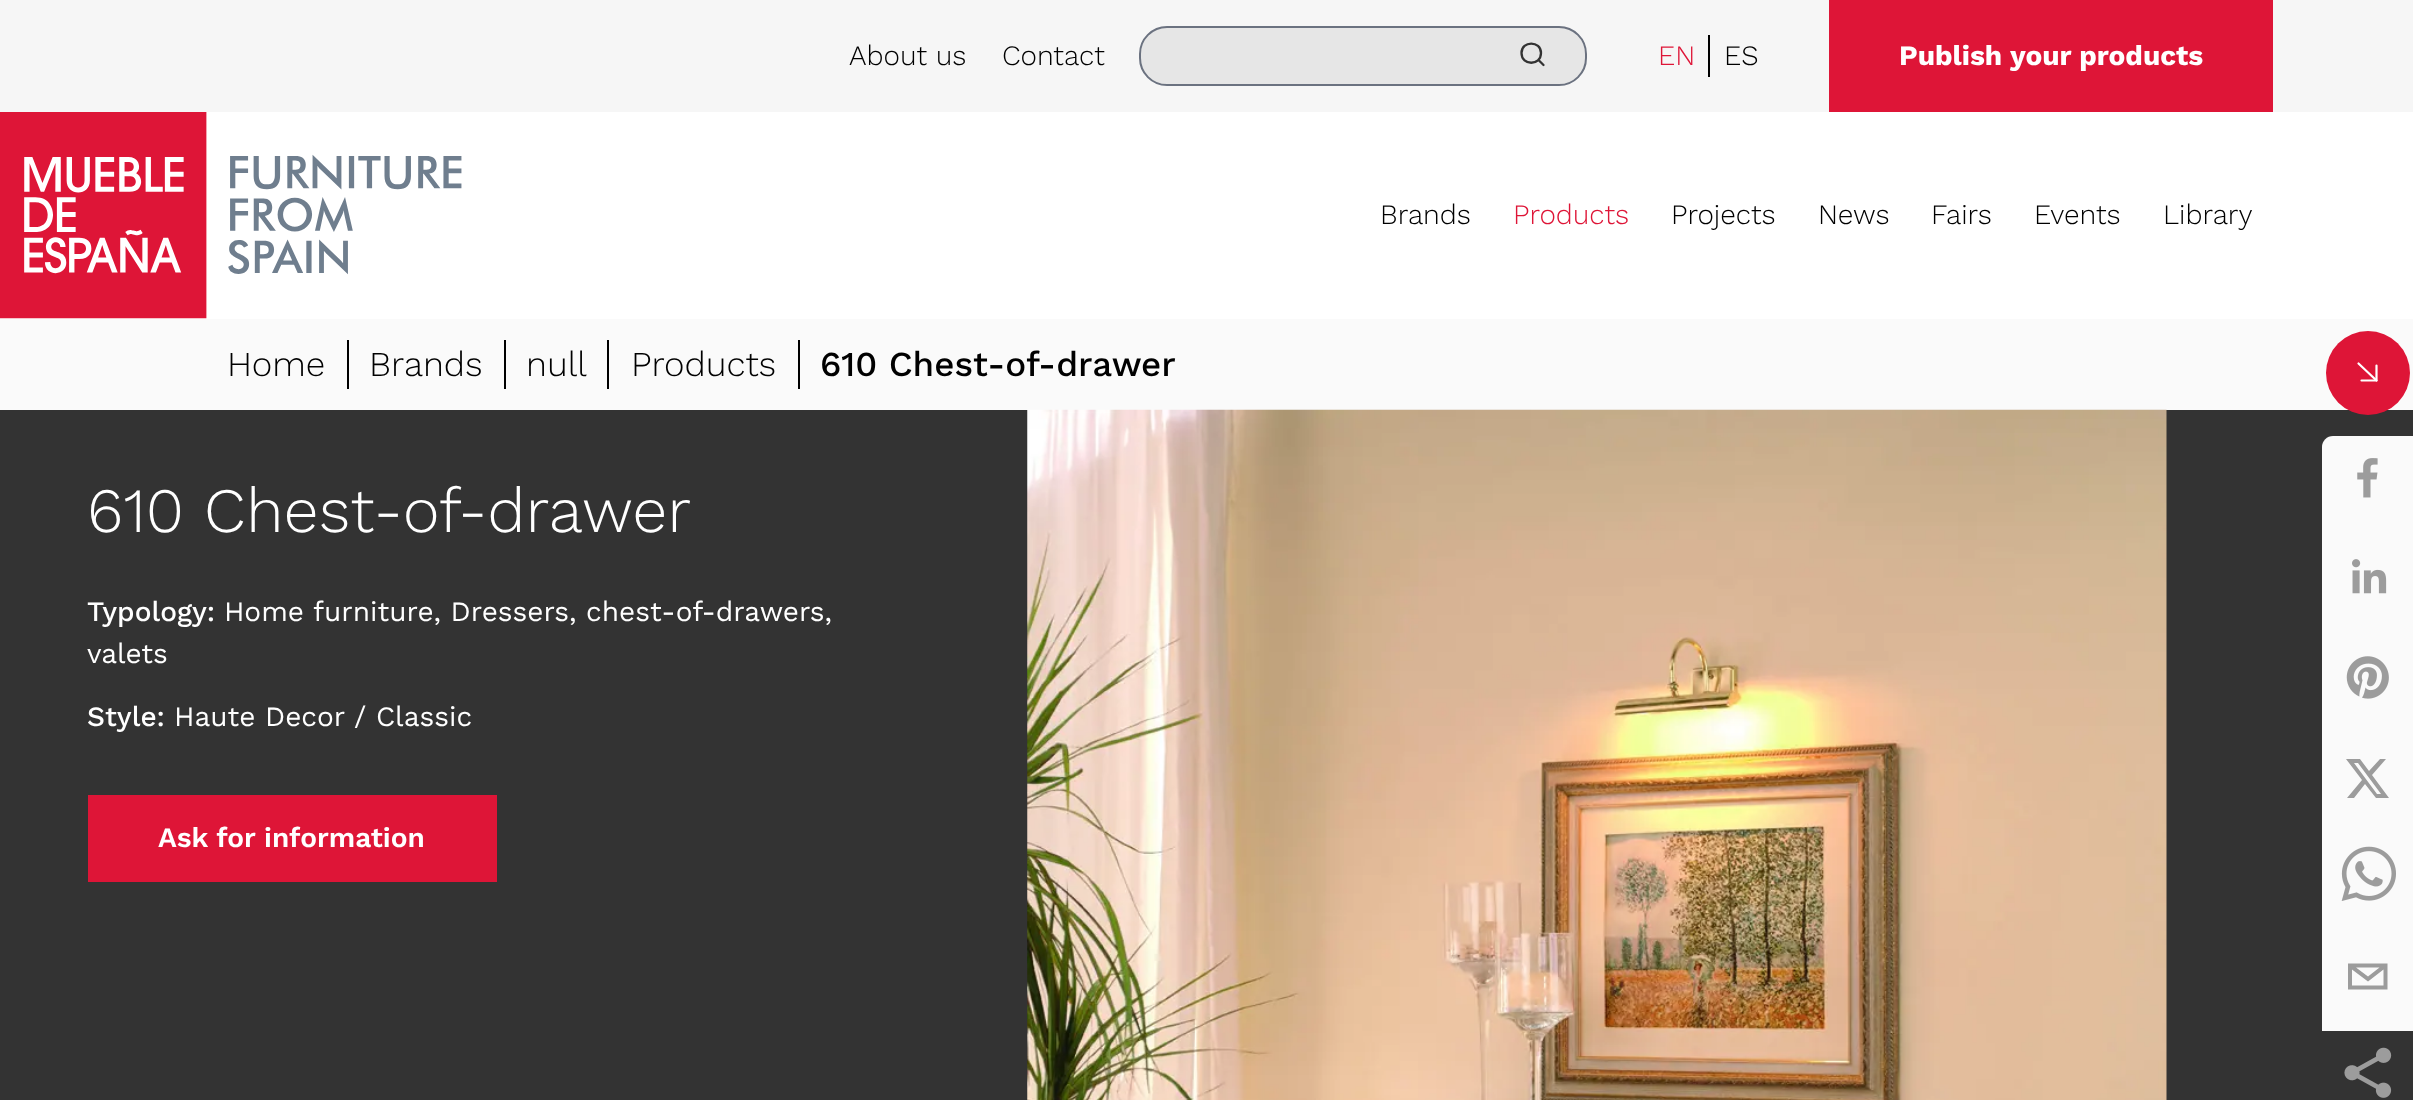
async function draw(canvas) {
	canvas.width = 2413;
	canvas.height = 1100;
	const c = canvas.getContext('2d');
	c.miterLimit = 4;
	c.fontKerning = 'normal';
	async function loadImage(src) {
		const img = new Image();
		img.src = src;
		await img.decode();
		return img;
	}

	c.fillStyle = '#fff';
	c.fillRect(0, 0, 2413, 1100);
	c.fillStyle = '#f6f6f6';
	c.fillRect(0, 0, 2413, 112);
	c.font = '300 28px Work Sans';
	c.fillStyle = '#000';
	c.fillText('About us', 849, 65);
	c.fillText('Contact', 1002, 65);
	c.fillStyle = '#e6e6e6';
	c.beginPath();
	c.roundRect(1140, 27, 446, 58, 27);
	c.fill();
	c.strokeStyle = '#6b7280';
	c.lineWidth = 2;
	c.stroke();
	c.beginPath();
	c.moveTo(1543.5, 65);
	c.lineTo(1538.5, 60);
	c.moveTo(1541, 53);
	c.bezierCurveTo(1541, 66, 1521.5, 66, 1521.5, 53);
	c.bezierCurveTo(1521.5, 40.5, 1541, 40.5, 1541, 53);
	c.closePath();
	c.strokeStyle = '#333';
	c.lineWidth = 2.3;
	c.lineCap = 'round';
	c.stroke();
	c.fillStyle = '#000';
	c.fillRect(1708, 35, 2, 42);
	c.fillStyle = '#de1537';
	c.fillText('EN', 1658, 65);
	c.fillStyle = '#000';
	c.fillText('ES', 1724, 65);
	c.fillStyle = '#de1537';
	c.fillRect(1829, 0, 444, 112);
	c.font = 'bold 28px Work Sans';
	c.fillStyle = '#fff';
	c.fillText('Publish your products', 1899, 65);
	c.drawImage(await loadImage('img1.png'), 0, 112, 462, 207);
	c.font = '300 28px Work Sans';
	c.fillStyle = '#000';
	c.fillText('Brands', 1380, 224);
	c.fillStyle = '#de1537';
	c.fillText('Products', 1513, 224);
	c.fillStyle = '#000';
	for (const [text, x, y] of [
		['Projects', 1671, 224],
		['News', 1818, 224],
		['Fairs', 1931, 224],
		['Events', 2034, 224],
		['Library', 2163, 224],
	]) {
		c.fillText(text, x, y);
	}
	c.fillStyle = '#fafafa';
	c.fillRect(0, 319, 2413, 91);
	c.fillStyle = '#000';
	c.fillRect(347, 340, 2, 49);
	c.font = '300 35px Work Sans';
	c.fillText('Home', 227, 376);
	c.fillRect(504, 340, 2, 49);
	c.fillText('Brands', 369, 376);
	c.fillRect(607, 340, 2, 49);
	c.fillText('null', 526, 376);
	c.fillRect(798, 340, 2, 49);
	c.fillText('Products', 631, 376);
	c.font = '500 35px Work Sans';
	c.fillText('610 Chest-of-drawer', 820, 376);
	c.fillStyle = '#333';
	c.fillRect(0, 410, 2413, 690);
	c.fillStyle = '#de1537';
	c.beginPath();
	c.arc(2368, 373, 42, 0, 2 * Math.PI);
	c.fill();
	c.beginPath();
	c.moveTo(2376.5, 365.5);
	c.lineTo(2376.5, 380.5);
	c.lineTo(2361.5, 380.5);
	c.strokeStyle = '#fff';
	c.lineWidth = 2.2;
	c.lineJoin = 'round';
	c.stroke();
	c.beginPath();
	c.moveTo(2376.5, 380.5);
	c.lineTo(2358.5, 363.5);
	c.lineJoin = 'miter';
	c.stroke();
	c.fillStyle = '#fafafa';
	c.beginPath();
	c.roundRect(2322, 436, 91, 595, [11, 0, 0, 0]);
	c.fill();
	c.drawImage(await loadImage('img2.png'), 2357, 458, 21, 40);
	c.drawImage(await loadImage('img3.png'), 2352, 559, 35, 35);
	c.drawImage(await loadImage('img4.png'), 2346, 656, 43, 43);
	c.fillStyle = '#9c9c9c';
	c.beginPath();
	c.moveTo(2380, 759);
	c.lineTo(2386, 759);
	c.lineTo(2372, 775);
	c.lineTo(2389, 798);
	c.lineTo(2376, 798);
	c.lineTo(2365, 784);
	c.lineTo(2354, 798);
	c.lineTo(2347, 798);
	c.lineTo(2362, 780);
	c.lineTo(2346, 759);
	c.lineTo(2360, 759);
	c.lineTo(2369, 771);
	c.closePath();
	c.moveTo(2377, 794);
	c.lineTo(2381, 794);
	c.lineTo(2358, 763);
	c.lineTo(2354, 763);
	c.closePath();
	c.fill();
	c.drawImage(await loadImage('img5.png'), 2341, 846, 55, 55);
	c.beginPath();
	c.moveTo(2348, 963.5);
	c.lineTo(2348, 989.5);
	c.lineTo(2387.5, 989.5);
	c.lineTo(2387.5, 963.5);
	c.closePath();
	c.moveTo(2379.5, 967.5);
	c.lineTo(2368, 976.5);
	c.lineTo(2356, 967.5);
	c.closePath();
	c.moveTo(2352, 985.5);
	c.lineTo(2352, 969.5);
	c.lineTo(2368, 981.5);
	c.lineTo(2383.5, 969.5);
	c.lineTo(2383.5, 985.5);
	c.closePath();
	c.fill();
	c.drawImage(await loadImage('img6.png'), 2344, 1047, 48, 51);
	c.font = '300 63px Work Sans';
	c.fillStyle = '#fff';
	c.fillText('610 Chest-of-drawer', 87, 532);
	c.font = '500 28px Work Sans';
	c.fillText('Typology:', 87, 621);
	c.font = '28px Work Sans';
	c.fillText('Home furniture, Dressers, chest-of-drawers,', 224, 621);
	c.fillText('valets', 87, 663);
	c.font = '500 28px Work Sans';
	c.fillText('Style:', 87, 726);
	c.font = '28px Work Sans';
	c.fillText('Haute Decor / Classic', 174, 726);
	c.fillStyle = '#de1537';
	c.fillRect(88, 795, 409, 87);
	c.font = '600 28px Work Sans';
	c.fillStyle = '#fff';
	c.fillText('Ask for information', 158, 847);
	c.drawImage(await loadImage('img7.png'), 1027, 409, 1140, 691);
}

draw(document.querySelector('canvas'));
